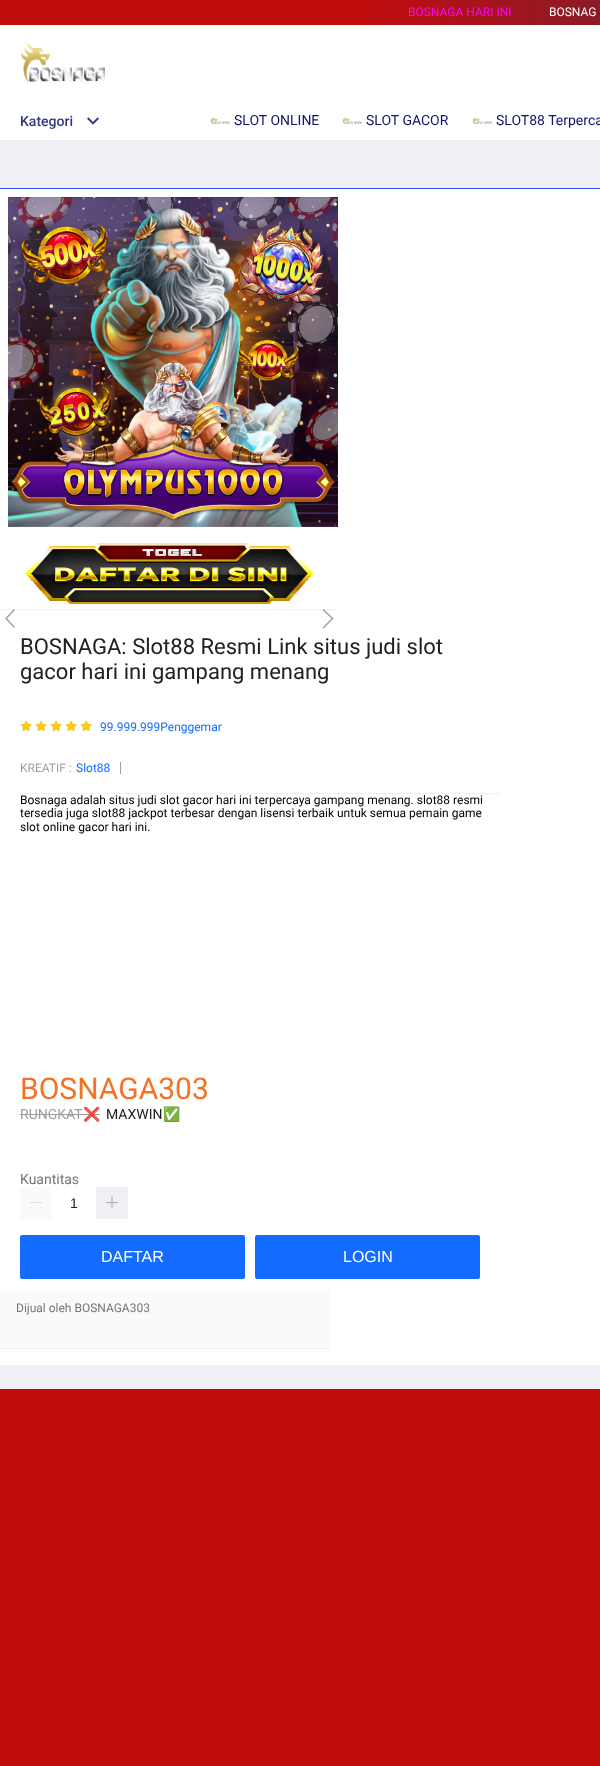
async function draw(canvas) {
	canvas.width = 600;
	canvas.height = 1766;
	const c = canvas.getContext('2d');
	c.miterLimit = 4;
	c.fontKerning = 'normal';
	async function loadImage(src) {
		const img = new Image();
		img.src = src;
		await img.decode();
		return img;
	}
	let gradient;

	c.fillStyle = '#c20d0d';
	c.fillRect(0, 0, 600, 1766);
	c.fillStyle = '#fff';
	c.fillRect(0, 25, 600, 115);
	gradient = c.createLinearGradient(0, 14, 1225, 11);
	gradient.addColorStop(0.29, '#c20d0d');
	gradient.addColorStop(1, '#003e6b');
	c.fillStyle = gradient;
	c.fillRect(366, 0, 234, 25);
	c.font = '12px Roboto';
	c.fillStyle = '#f0f';
	c.fillText('BOSNAGA HARI INI', 408, 16);
	c.fillStyle = '#fff';
	c.fillText('BOSNAG', 549, 16);
	c.drawImage(await loadImage('img1.png'), 21, 42, 84, 40);
	c.font = '500 14px Roboto';
	c.fillStyle = '#333683';
	c.fillText('Kategori', 20, 126);
	c.drawImage(await loadImage('img2.png'), 87, 117, 12, 8);
	c.drawImage(await loadImage('img3.png'), 210, 117, 21, 7);
	c.font = '14px Roboto';
	c.fillStyle = '#0f136d';
	c.fillText('SLOT ONLINE', 234, 125);
	c.drawImage(await loadImage('img4.png'), 342, 117, 21, 7);
	c.fillText('SLOT GACOR', 366, 125);
	c.drawImage(await loadImage('img4.png'), 472, 117, 21, 7);
	c.fillText('SLOT88 Terperca', 496, 125);
	for (const [x, y, w, h, color] of [
		[0, 140, 600, 48, '#eff0f5'],
		[0, 188, 600, 1, '#3352ed'],
		[0, 1365, 600, 24, '#eff0f5'],
		[0, 189, 600, 1176, '#fff'],
		[0, 609, 338, 1, '#eff0f5'],
	]) {
		c.fillStyle = color;
		c.fillRect(x, y, w, h);
	}
	c.drawImage(await loadImage('img5.png'), 8, 197, 330, 330);
	c.drawImage(await loadImage('img6.png'), 25, 543, 289, 61);
	c.fillStyle = '#9e9e9e';
	c.beginPath();
	c.moveTo(15, 627);
	c.lineTo(7, 618.5);
	c.lineTo(15, 610);
	c.lineTo(14, 609);
	c.lineTo(5, 618.5);
	c.lineTo(14, 628);
	c.closePath();
	c.fill();
	c.beginPath();
	c.moveTo(323.5, 628.5);
	c.lineTo(322.5, 627.5);
	c.lineTo(331.5, 618.5);
	c.lineTo(322.5, 610);
	c.lineTo(323.5, 609);
	c.lineTo(333.5, 618.5);
	c.closePath();
	c.fill();
	c.font = '22px Roboto';
	c.fillStyle = '#212121';
	c.fillText('BOSNAGA: Slot88 Resmi Link situs judi slot', 20, 654);
	c.fillText('gacor hari ini gampang menang', 20, 679);
	c.drawImage(await loadImage('img7.png'), 20, 720, 12, 12);
	c.drawImage(await loadImage('img7.png'), 35, 720, 12, 12);
	c.drawImage(await loadImage('img7.png'), 50, 720, 12, 12);
	c.drawImage(await loadImage('img7.png'), 65, 720, 12, 12);
	c.drawImage(await loadImage('img7.png'), 80, 720, 12, 12);
	c.font = '12px Roboto';
	c.fillStyle = '#136cff';
	c.fillText('99.999.999Penggemar', 100, 731);
	c.fillStyle = '#eff0f5';
	c.fillRect(20, 793, 480, 1);
	c.fillStyle = '#9e9e9e';
	c.fillText('KREATIF :', 20, 772);
	c.fillStyle = '#136cff';
	c.fillText('Slot88', 76, 772);
	c.fillStyle = '#9e9e9e';
	c.fillRect(120, 762, 1, 12);
	c.fillStyle = '#000';
	for (const [text, x, y] of [
		['Bosnaga adalah situs judi slot gacor hari ini terpercaya gampang menang. slot88 resmi', 20, 804],
		['tersedia juga slot88 jackpot terbesar dengan lisensi terbaik untuk semua pemain game', 20, 817],
		['slot online gacor hari ini.', 20, 831],
	]) {
		c.fillText(text, x, y);
	}
	c.font = '30px Roboto';
	c.fillStyle = '#f57224';
	c.fillText('BOSNAGA303', 20, 1099);
	c.font = '14px Roboto';
	c.fillStyle = '#9e9e9e';
	c.fillText('RUNGKAT', 20, 1119);
	c.fillRect(20, 1114, 80, 1);
	c.font = '14px Noto Color Emoji';
	c.fillText('❌', 83, 1119);
	c.font = '14px Roboto';
	c.fillStyle = '#212121';
	c.fillText('MAXWIN', 106, 1119);
	c.font = '14px Noto Color Emoji';
	c.fillText('✅', 163, 1119);
	c.font = '14px Roboto';
	c.fillStyle = '#757575';
	c.fillText('Kuantitas', 20, 1184);
	c.fillStyle = '#fafafa';
	c.fillRect(20, 1187, 32, 32);
	c.drawImage(await loadImage('img8.png'), 30, 1202, 12, 1);
	c.fillStyle = '#eff0f5';
	c.fillRect(96, 1187, 32, 32);
	c.drawImage(await loadImage('img9.png'), 106, 1196, 12, 13);
	c.font = '14px Liberation Sans';
	c.fillStyle = '#212121';
	c.fillText('1', 70, 1208);
	c.fillStyle = '#136cff';
	c.beginPath();
	c.roundRect(20, 1235, 225, 44, 2);
	c.fill();
	c.font = '16px Liberation Sans';
	c.fillStyle = '#fff';
	c.fillText('DAFTAR', 101, 1262);
	c.fillStyle = '#136cff';
	c.beginPath();
	c.roundRect(255, 1235, 225, 44, 2);
	c.fill();
	c.fillStyle = '#fff';
	c.fillText('LOGIN', 343, 1262);
	c.fillStyle = '#fafafa';
	c.fillRect(0, 1289, 330, 59);
	c.font = '12px Roboto';
	c.fillStyle = '#757575';
	c.fillText('Dijual oleh BOSNAGA303', 16, 1312);
	c.fillStyle = '#eff0f5';
	c.fillRect(0, 1348, 330, 1);
}

draw(document.querySelector('canvas'));
